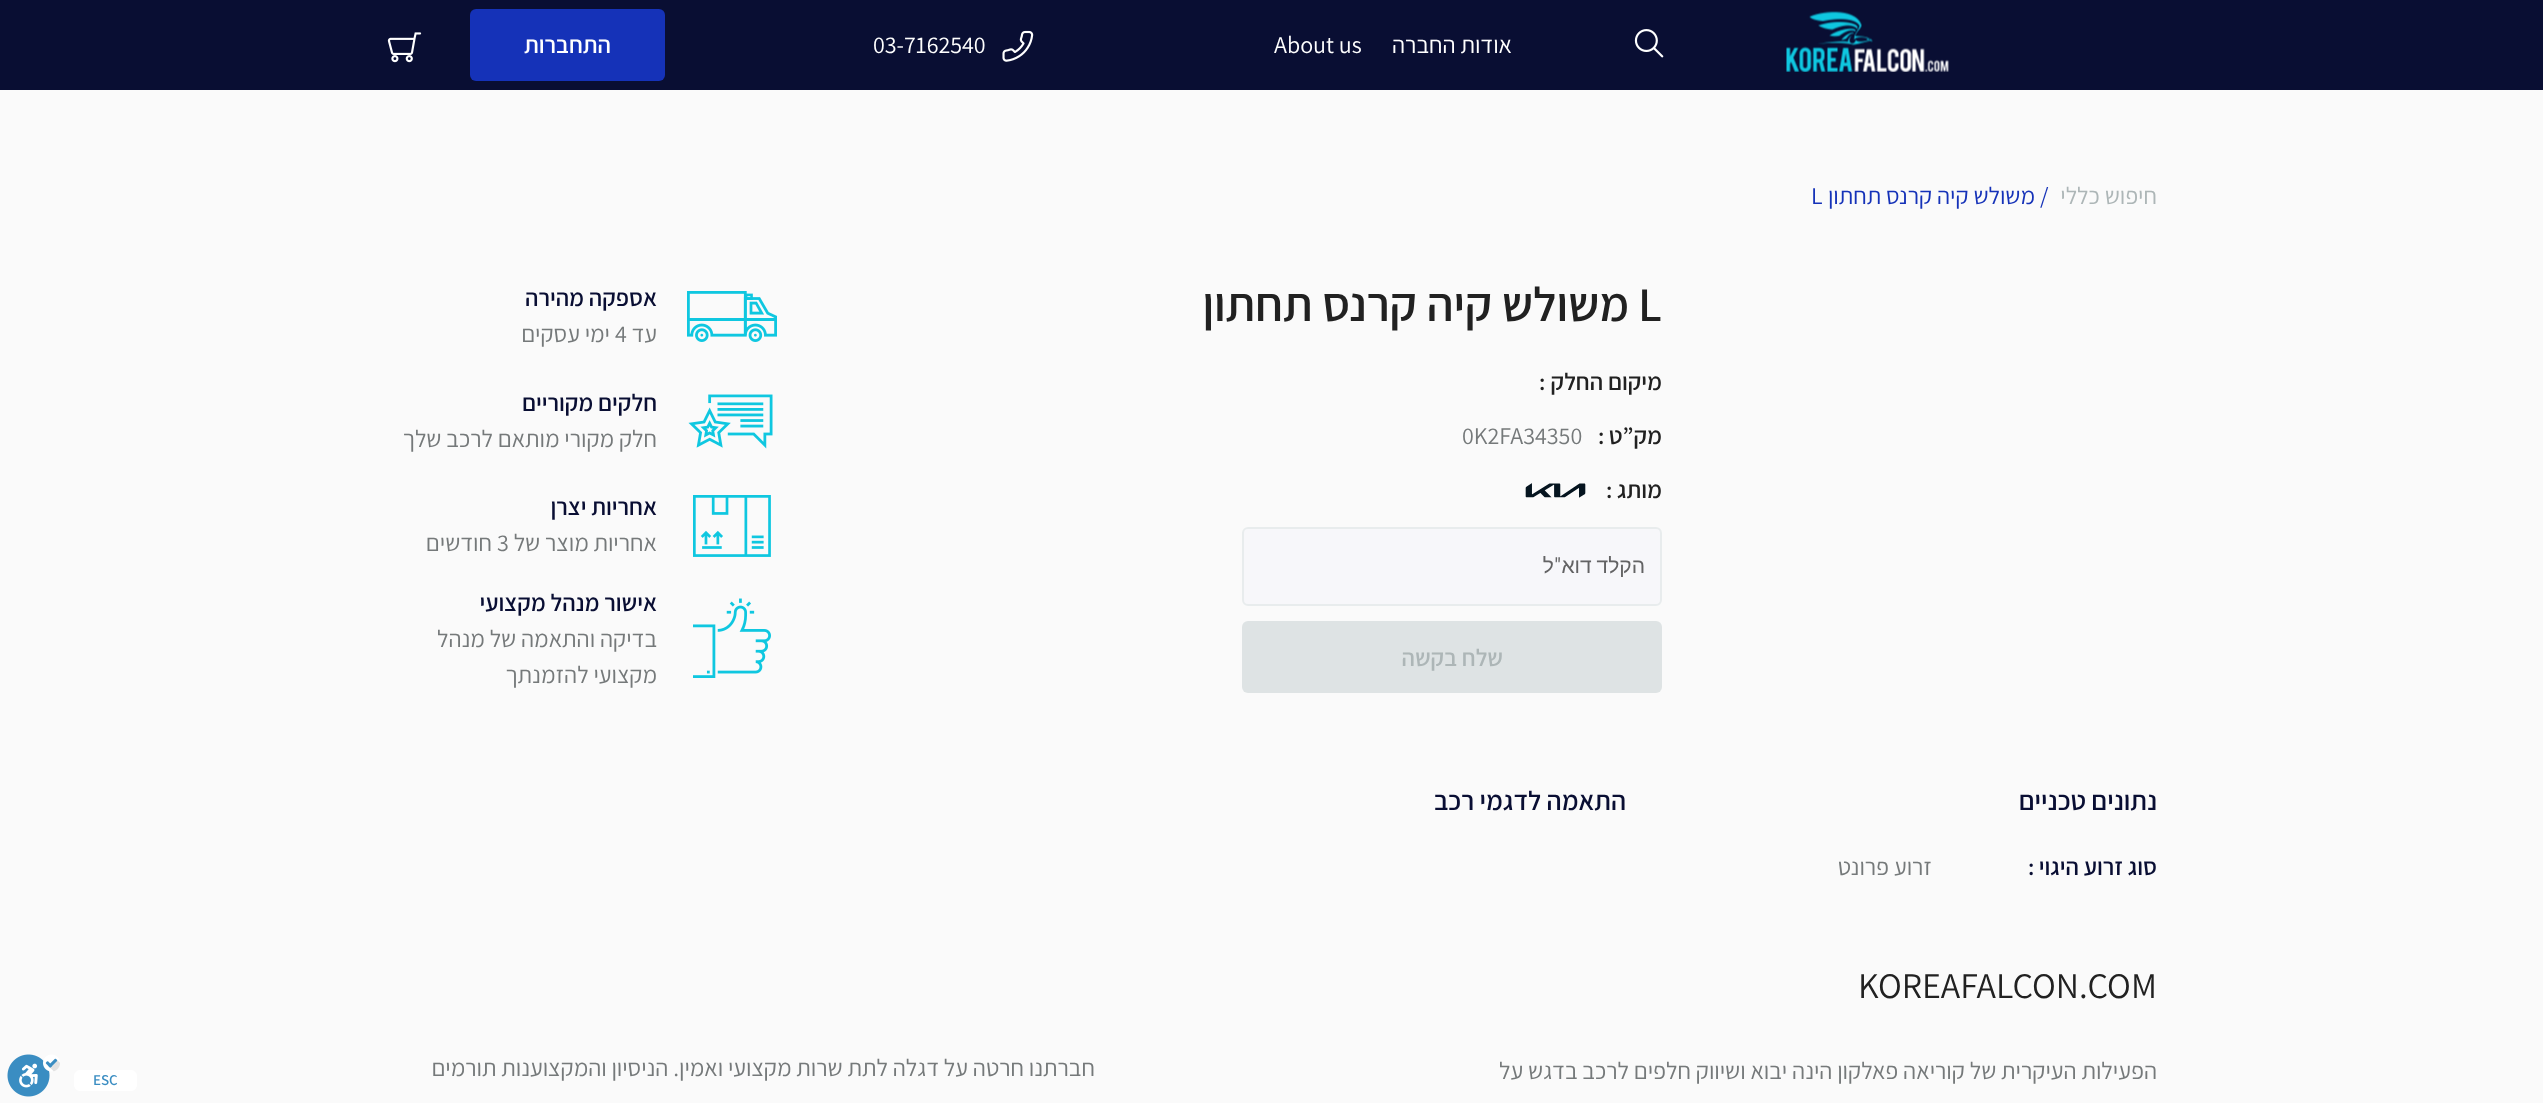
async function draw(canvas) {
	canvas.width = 2543;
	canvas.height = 1103;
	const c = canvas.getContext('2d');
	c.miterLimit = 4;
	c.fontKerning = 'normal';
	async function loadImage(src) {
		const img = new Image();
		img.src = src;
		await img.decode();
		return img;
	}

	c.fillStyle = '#fafafa';
	c.fillRect(0, 0, 2543, 1103);
	c.fillStyle = '#090e33';
	c.fillRect(0, 0, 2543, 90);
	c.drawImage(await loadImage('img1.png'), 1786, 11, 163, 61);
	c.drawImage(await loadImage('img2.png'), 1634, 29, 30, 29);
	c.direction = 'rtl';
	c.font = '24px Assistant';
	c.fillStyle = '#fff';
	c.fillText('אודות החברה', 1512, 53);
	c.direction = 'ltr';
	c.fillText('About us', 1274, 53);
	c.drawImage(await loadImage('img3.png'), 1002, 30, 32, 32);
	c.fillText('03-7162540', 873, 53);
	c.fillStyle = '#1532b8';
	c.beginPath();
	c.roundRect(470, 9, 195, 72, 6);
	c.fill();
	c.direction = 'rtl';
	c.font = '600 24px Assistant';
	c.fillStyle = '#fff';
	c.fillText('התחברות', 611, 53);
	c.drawImage(await loadImage('img4.png'), 387, 32, 35, 31);
	c.font = '24px Assistant';
	c.fillStyle = '#adb6b7';
	c.fillText('חיפוש כללי', 2157, 204);
	c.direction = 'ltr';
	c.fillStyle = '#1532b8';
	c.fillText('/', 2040, 204);
	c.direction = 'rtl';
	c.fillText('משולש קיה קרנס תחתון', 2035, 204);
	c.direction = 'ltr';
	c.fillText('L', 1811, 204);
	c.font = '600 48px Assistant';
	c.fillStyle = '#212121';
	c.fillText('L', 1638, 321);
	c.direction = 'rtl';
	c.fillText('משולש קיה קרנס תחתון', 1629, 321);
	c.font = '600 24px Assistant';
	c.fillText('מיקום החלק', 1662, 390);
	c.direction = 'ltr';
	c.fillText(':', 1539, 390);
	c.direction = 'rtl';
	c.fillText('מק”ט', 1662, 444);
	c.direction = 'ltr';
	c.fillText(':', 1598, 444);
	c.font = '24px Assistant';
	c.fillStyle = '#75797a';
	c.fillText('0K2FA34350', 1462, 444);
	c.direction = 'rtl';
	c.font = '600 24px Assistant';
	c.fillStyle = '#212121';
	c.fillText('מותג', 1662, 498);
	c.direction = 'ltr';
	c.fillText(':', 1606, 498);
	c.drawImage(await loadImage('img5.png'), 1525, 483, 61, 15);
	c.fillStyle = '#f7f7fa';
	c.beginPath();
	c.roundRect(1243, 528, 418, 77, 5);
	c.fill();
	c.strokeStyle = '#e8eced';
	c.lineWidth = 2;
	c.stroke();
	c.wordSpacing = '-1px';
	c.direction = 'rtl';
	c.font = '21px Liberation Sans';
	c.fillStyle = '#636364';
	c.fillText('הקלד דוא', 1645, 573);
	c.wordSpacing = '0px';
	c.font = '21px Roboto';
	c.fillText('"', 1561, 573);
	c.font = '21px Liberation Sans';
	c.fillText('ל', 1554, 573);
	c.fillStyle = '#dee3e4';
	c.beginPath();
	c.roundRect(1242, 621, 420, 72, 6);
	c.fill();
	c.font = '600 24px Assistant';
	c.fillStyle = '#adb6b7';
	c.fillText('שלח בקשה', 1503, 666);
	c.drawImage(await loadImage('img6.png'), 687, 291, 90, 51);
	c.fillStyle = '#090e33';
	c.fillText('אספקה מהירה', 657, 306);
	c.font = '24px Assistant';
	c.fillStyle = '#75797a';
	c.fillText('עד', 657, 342);
	c.direction = 'ltr';
	c.fillText('4', 615, 342);
	c.direction = 'rtl';
	c.fillText('ימי עסקים', 610, 342);
	c.drawImage(await loadImage('img7.png'), 688, 394, 85, 55);
	c.font = '600 24px Assistant';
	c.fillStyle = '#090e33';
	c.fillText('חלקים מקוריים', 657, 411);
	c.font = '24px Assistant';
	c.fillStyle = '#75797a';
	c.fillText('חלק מקורי מותאם לרכב שלך', 657, 447);
	c.drawImage(await loadImage('img8.png'), 693, 495, 78, 62);
	c.font = '600 24px Assistant';
	c.fillStyle = '#090e33';
	c.fillText('אחריות יצרן', 657, 515);
	c.font = '24px Assistant';
	c.fillStyle = '#75797a';
	c.fillText('אחריות מוצר של', 657, 551);
	c.direction = 'ltr';
	c.fillText('3', 497, 551);
	c.direction = 'rtl';
	c.fillText('חודשים', 492, 551);
	c.drawImage(await loadImage('img9.png'), 693, 598, 78, 80);
	c.font = '600 24px Assistant';
	c.fillStyle = '#090e33';
	c.fillText('אישור מנהל מקצועי', 657, 611);
	c.font = '24px Assistant';
	c.fillStyle = '#75797a';
	c.fillText('בדיקה והתאמה של מנהל', 657, 647);
	c.fillText('מקצועי להזמנתך', 657, 683);
	c.font = '600 27px Assistant';
	c.fillStyle = '#090e33';
	c.fillText('נתונים טכניים', 2157, 810);
	c.font = '600 24px Assistant';
	c.fillText('סוג זרוע היגוי', 2157, 875);
	c.direction = 'ltr';
	c.fillText(':', 2028, 875);
	c.direction = 'rtl';
	c.font = '24px Assistant';
	c.fillStyle = '#75797a';
	c.fillText('זרוע פרונט', 1932, 875);
	c.font = '600 27px Assistant';
	c.fillStyle = '#090e33';
	c.fillText('התאמה לדגמי רכב', 1626, 810);
	c.direction = 'ltr';
	c.font = '36px Assistant';
	c.fillStyle = '#212121';
	c.fillText('KOREAFALCON.COM', 1858, 998);
	c.direction = 'rtl';
	c.font = '24px Assistant';
	c.fillStyle = '#75797a';
	c.fillText('הפעילות העיקרית של קוריאה פאלקון הינה יבוא ושיווק חלפים לרכב בדגש על', 2157, 1079);
	c.fillText('חברתנו חרטה על דגלה לתת שרות מקצועי ואמין. הניסיון והמקצוענות תורמים', 1095, 1076);
	c.fillStyle = '#fff';
	c.beginPath();
	c.roundRect(74, 1070, 63, 21, 6);
	c.fill();
	c.direction = 'ltr';
	c.font = '600 15px Assistant';
	c.fillStyle = '#3a8dc2';
	c.fillText('ESC', 93, 1085);
	c.drawImage(await loadImage('img10.png'), 7, 1054, 53, 43);
}

draw(document.querySelector('canvas'));
